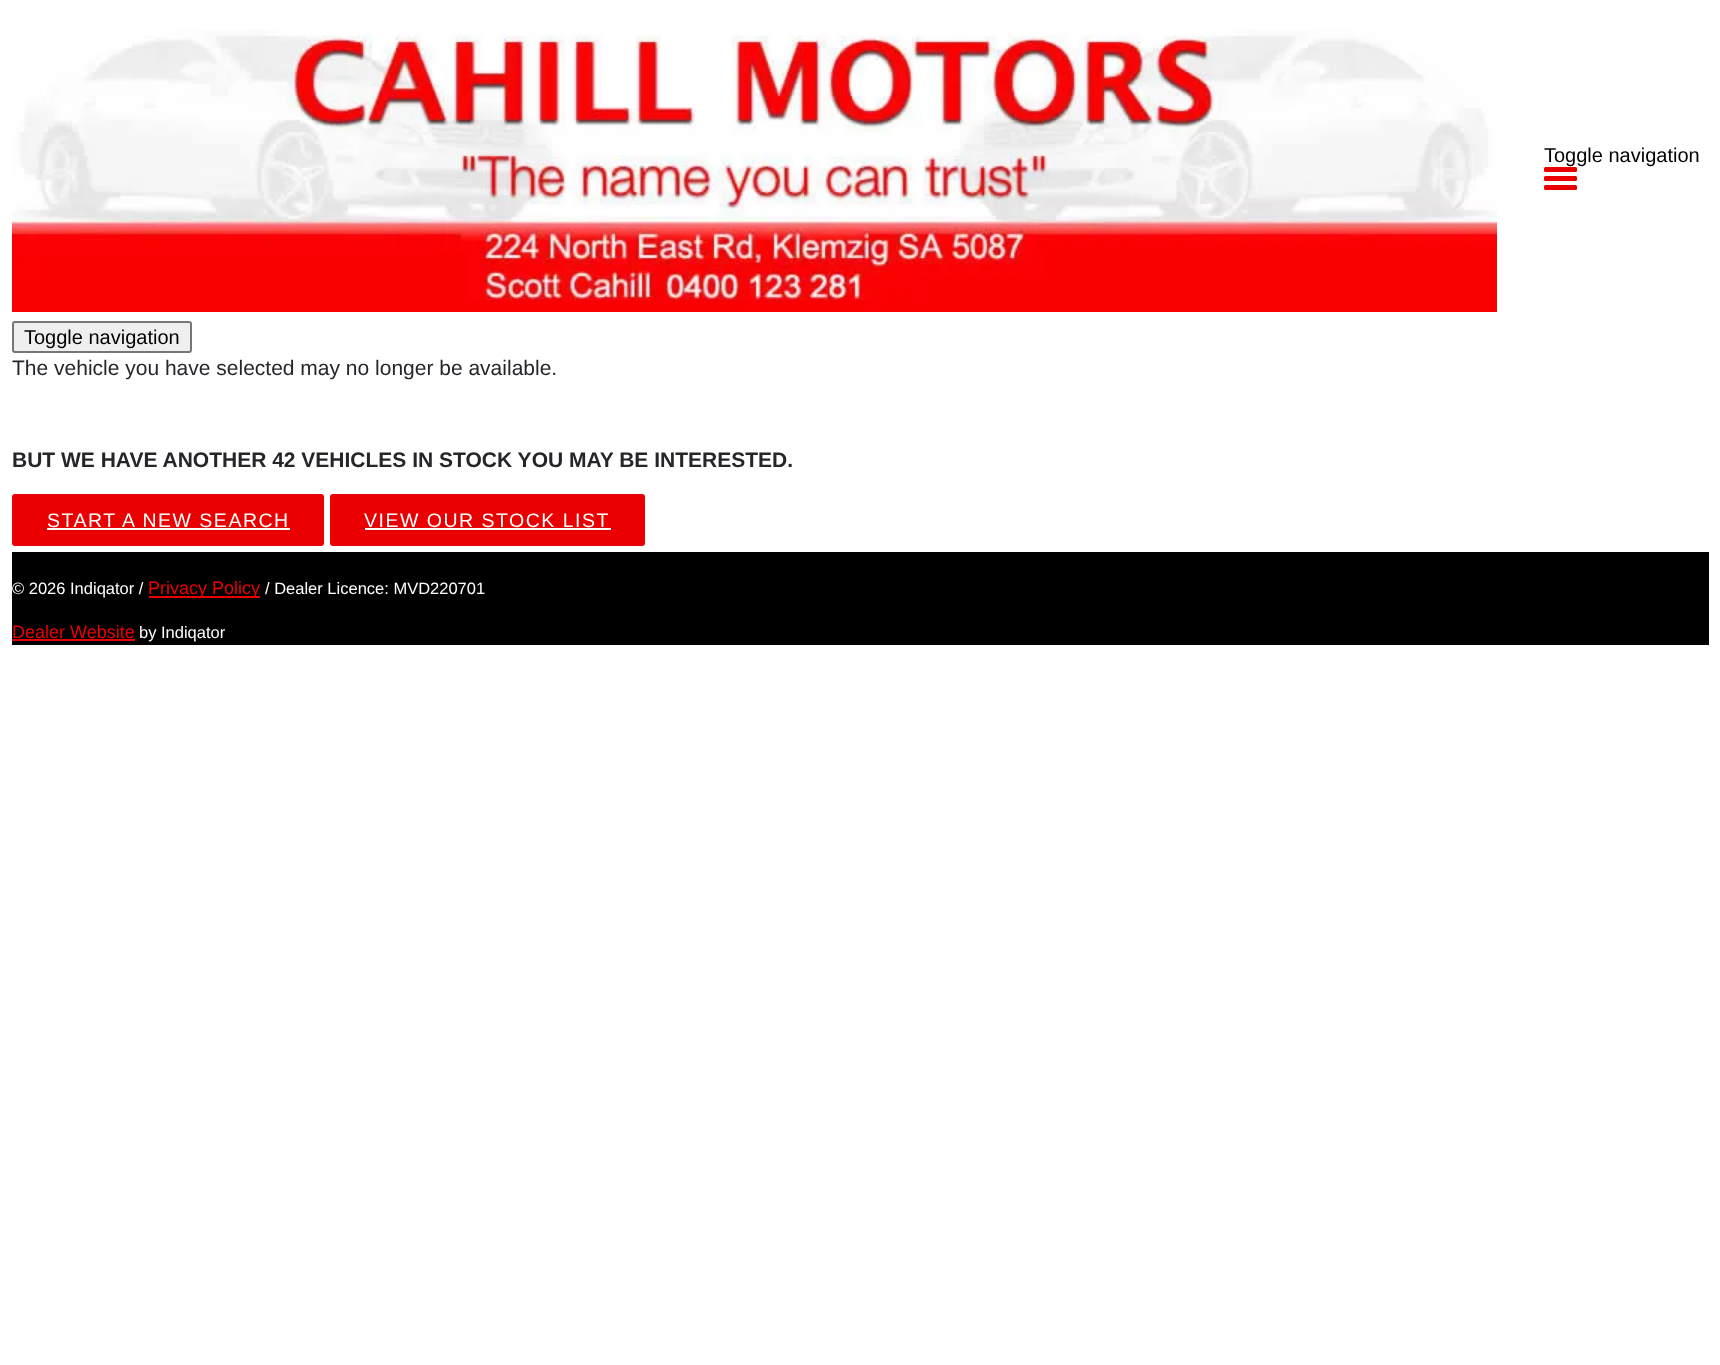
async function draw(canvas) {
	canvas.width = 1720;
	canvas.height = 1365;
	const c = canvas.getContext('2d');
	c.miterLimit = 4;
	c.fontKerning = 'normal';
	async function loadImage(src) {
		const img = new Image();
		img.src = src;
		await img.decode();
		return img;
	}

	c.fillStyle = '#fff';
	c.fillRect(0, 0, 1720, 1365);
	c.drawImage(await loadImage('img1.png'), 12, 30, 1485, 282);
	c.font = '20px Liberation Sans';
	c.fillStyle = '#000';
	c.fillText('Toggle navigation', 1544, 162);
	c.fillStyle = '#ea0000';
	c.beginPath();
	c.roundRect(1544, 167, 33, 5, 1.5);
	c.fill();
	c.beginPath();
	c.roundRect(1544, 176, 33, 5, 1.5);
	c.fill();
	c.beginPath();
	c.roundRect(1544, 185, 33, 5, 1.5);
	c.fill();
	c.fillStyle = '#efefef';
	c.beginPath();
	c.roundRect(13, 322, 178, 30, 2);
	c.fill();
	c.strokeStyle = '#767676';
	c.lineWidth = 2;
	c.stroke();
	c.fillStyle = '#000';
	c.fillText('Toggle navigation', 24, 344);
	c.font = '21px Liberation Sans';
	c.fillStyle = '#27252a';
	c.fillText('The vehicle you have selected may no longer be available.', 12, 375);
	c.font = 'bold 21px Liberation Sans';
	c.fillText('BUT WE HAVE ANOTHER 42 VEHICLES IN STOCK YOU MAY BE INTERESTED.', 12, 467);
	c.fillStyle = '#ea0000';
	c.fillRect(47, 494, 243, 52);
	c.letterSpacing = '1.5px';
	c.font = '19.5px Liberation Sans';
	c.fillStyle = '#fff';
	c.fillText('START A NEW SEARCH', 47, 527);
	c.fillStyle = '#ea0000';
	c.beginPath();
	c.roundRect(12, 494, 35, 52, [3, 0, 0, 3]);
	c.fill();
	c.beginPath();
	c.roundRect(290, 494, 34, 52, [0, 3, 3, 0]);
	c.fill();
	c.fillStyle = '#fff';
	c.fillRect(47, 528, 243, 2);
	c.fillStyle = '#ea0000';
	c.beginPath();
	c.roundRect(330, 494, 35, 52, [3, 0, 0, 3]);
	c.fill();
	c.fillRect(365, 494, 246, 52);
	c.fillStyle = '#fff';
	c.fillText('VIEW OUR STOCK LIST', 364, 527);
	c.fillStyle = '#ea0000';
	c.beginPath();
	c.roundRect(611, 494, 34, 52, [0, 3, 3, 0]);
	c.fill();
	c.fillStyle = '#fff';
	c.fillRect(365, 528, 246, 2);
	c.fillStyle = '#000';
	c.fillRect(12, 552, 1697, 93);
	c.letterSpacing = '0px';
	c.font = '16.5px Liberation Sans';
	c.fillStyle = '#fff';
	c.fillText('© 2026 Indiqator /', 12, 594);
	c.fillStyle = '#ea0000';
	c.fillRect(149, 596, 111, 2);
	c.font = '18px Liberation Sans';
	c.fillText('Privacy Policy', 148, 594);
	c.font = '16.5px Liberation Sans';
	c.fillStyle = '#fff';
	c.fillText('/ Dealer Licence: MVD220701', 265, 594);
	c.font = '18px Liberation Sans';
	c.fillStyle = '#ea0000';
	c.fillText('Dealer Website', 12, 638);
	c.fillRect(12, 639, 123, 2);
	c.font = '16.5px Liberation Sans';
	c.fillStyle = '#fff';
	c.fillText('by Indiqator', 139, 638);
}

draw(document.querySelector('canvas'));
